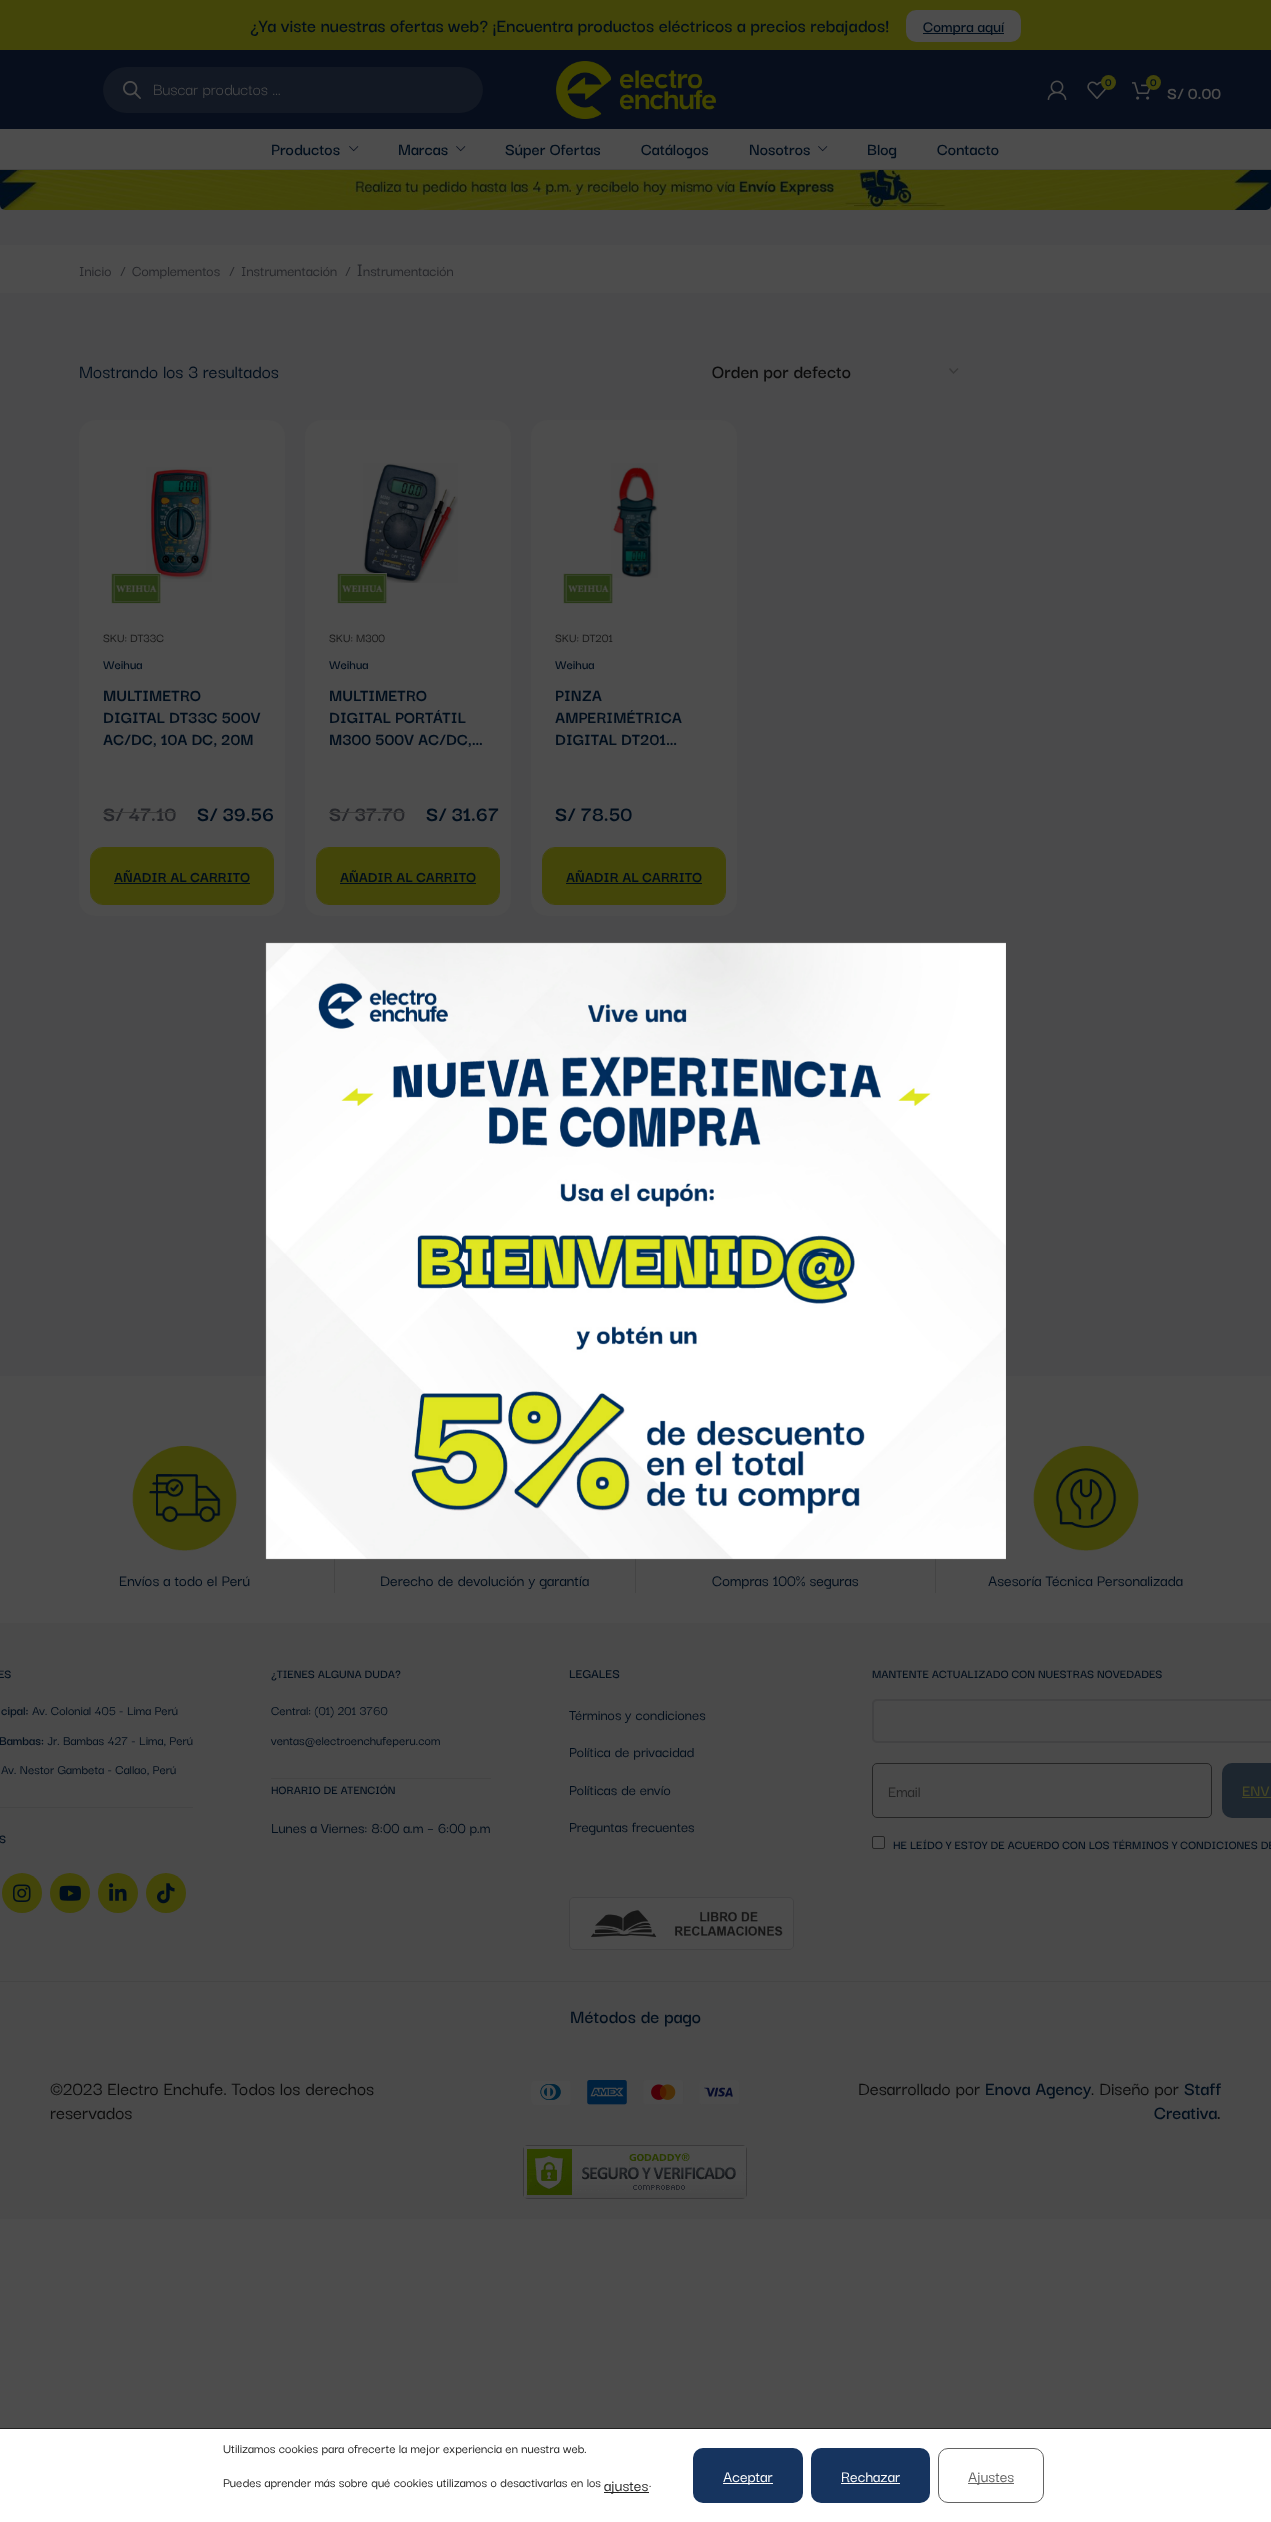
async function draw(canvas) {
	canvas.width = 1271;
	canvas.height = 2522;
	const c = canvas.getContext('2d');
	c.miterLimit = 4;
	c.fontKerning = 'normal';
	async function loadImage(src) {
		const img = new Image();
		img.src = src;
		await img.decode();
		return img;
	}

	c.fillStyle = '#4d4d4d';
	c.fillRect(0, 0, 1271, 2522);
	c.fillStyle = '#43450a';
	c.fillRect(0, 0, 1271, 50);
	c.font = '600 20px Darker Grotesque';
	c.fillStyle = '#000e1c';
	c.fillText('¿Ya viste nuestras ofertas web? ¡Encuentra productos eléctricos a precios rebajados!', 250, 32);
	c.fillStyle = '#4d4d4d';
	c.beginPath();
	c.roundRect(906, 10, 115, 32, 10);
	c.fill();
	c.fillStyle = '#000e1c';
	c.fillRect(923, 33, 81, 1);
	c.font = '600 17px Darker Grotesque';
	c.fillText('Compra aquí', 923, 32);
	c.fillStyle = '#070e1c';
	c.fillRect(0, 50, 1271, 79);
	c.fillStyle = '#121823';
	c.beginPath();
	c.roundRect(103, 67, 380, 46, 23);
	c.fill();
	c.drawImage(await loadImage('img1.png'), 123, 81, 18, 18);
	c.font = '18px Darker Grotesque';
	c.fillStyle = '#4d4d4d';
	c.fillText('Buscar productos ...', 153, 95);
	c.drawImage(await loadImage('img2.png'), 556, 61, 160, 58);
	c.drawImage(await loadImage('img3.png'), 1047, 80, 20, 20);
	c.drawImage(await loadImage('img4.png'), 1087, 81, 20, 18);
	c.fillStyle = '#42440d';
	c.beginPath();
	c.arc(1108.5, 82.5, 7.5, 0, 2 * Math.PI);
	c.fill();
	c.font = 'bold 12px Darker Grotesque';
	c.fillStyle = '#000e1c';
	c.fillText('0', 1105, 86);
	c.drawImage(await loadImage('img5.png'), 1132, 82, 19, 18);
	c.fillStyle = '#42440d';
	c.beginPath();
	c.arc(1153.5, 82.5, 7.5, 0, 2 * Math.PI);
	c.fill();
	c.fillStyle = '#000e1c';
	c.fillText('0', 1150, 86);
	c.font = 'bold 18px Darker Grotesque';
	c.fillStyle = '#4d4d4d';
	c.fillText('S/ 0.00', 1167, 99);
	c.fillStyle = '#444';
	c.fillRect(0, 169, 1271, 1);
	c.font = '600 18px Darker Grotesque';
	c.fillStyle = '#000e1c';
	c.fillText('Productos', 271, 155);
	c.drawImage(await loadImage('img6.png'), 349, 146, 10, 6);
	c.fillText('Marcas', 398, 155);
	c.drawImage(await loadImage('img6.png'), 456, 146, 10, 6);
	for (const [text, x, y] of [
		['Súper Ofertas', 505, 155],
		['Catálogos', 641, 155],
		['Nosotros', 749, 155],
	]) {
		c.fillText(text, x, y);
	}
	c.drawImage(await loadImage('img6.png'), 818, 146, 10, 6);
	c.fillText('Blog', 867, 155);
	c.fillText('Contacto', 937, 155);
	c.fillStyle = '#4a4a4b';
	c.fillRect(0, 205, 1271, 1171);
	c.drawImage(await loadImage('img7.png'), 0, 170, 1271, 40);
	c.fillStyle = '#4d4d4d';
	c.fillRect(0, 245, 1271, 48);
	c.font = '500 16px Darker Grotesque';
	c.fillStyle = '#25262a';
	for (const [text, x, y] of [
		['Inicio', 79, 276],
		['/', 120, 276],
		['Complementos', 132, 276],
		['/', 229, 276],
		['Instrumentación', 241, 276],
		['/', 345, 276],
	]) {
		c.fillText(text, x, y);
	}
	c.font = '16px Noto Sans';
	c.fillText('I', 357, 276);
	c.font = '500 16px Darker Grotesque';
	c.fillText('nstrumentación', 363, 276);
	c.font = '500 20px Darker Grotesque';
	c.fillStyle = '#000e1c';
	c.fillText('Mostrando los 3 resultados', 79, 378);
	c.beginPath();
	c.moveTo(949.5, 368.5);
	c.lineTo(953.5, 373);
	c.lineTo(958, 368.5);
	c.strokeStyle = '#383838';
	c.lineWidth = 1.4;
	c.stroke();
	c.font = '600 20px Darker Grotesque';
	c.fillStyle = '#0b0b0b';
	c.fillText('Orden por defecto', 712, 378);
	c.fillStyle = '#4d4d4d';
	c.beginPath();
	c.roundRect(79, 420, 206, 496, 16);
	c.fill();
	c.drawImage(await loadImage('img8.png'), 146, 467, 66, 115);
	c.drawImage(await loadImage('img9.png'), 111, 573, 50, 31);
	c.font = '500 13px Darker Grotesque';
	c.fillStyle = '#141414';
	c.fillText('SKU: DT33C', 103, 642);
	c.font = '600 14px Darker Grotesque';
	c.fillStyle = '#000e1c';
	c.fillText('Weihua', 103, 669);
	c.font = 'bold 18px Darker Grotesque';
	for (const [text, x, y] of [
		['MULTIMETRO', 103, 701],
		['DIGITAL DT33C 500V', 103, 723],
		['AC/DC, 10A DC, 20M', 103, 745],
	]) {
		c.fillText(text, x, y);
	}
	c.font = 'bold 22px Darker Grotesque';
	c.fillStyle = '#25262a';
	c.fillText('S/ 47.10', 103, 821);
	c.fillStyle = '#383838';
	c.fillRect(103, 812, 73, 1);
	c.fillStyle = '#000e1c';
	c.fillText('S/ 39.56', 197, 821);
	c.fillStyle = '#43450a';
	c.beginPath();
	c.roundRect(91, 848, 182, 56, 12);
	c.fill();
	c.fillStyle = '#000e1c';
	c.fillRect(114, 883, 136, 1);
	c.beginPath();
	c.roundRect(90.5, 847.5, 183, 57, 12.5);
	c.strokeStyle = '#43450a';
	c.lineWidth = 1;
	c.stroke();
	c.font = 'bold 16px Darker Grotesque';
	c.fillText('AÑADIR AL CARRITO', 114, 882);
	c.fillStyle = '#4d4d4d';
	c.beginPath();
	c.roundRect(305, 420, 206, 496, 16);
	c.fill();
	c.drawImage(await loadImage('img10.png'), 363, 463, 95, 120);
	c.drawImage(await loadImage('img11.png'), 337, 573, 51, 31);
	c.font = '500 13px Darker Grotesque';
	c.fillStyle = '#141414';
	c.fillText('SKU: M300', 329, 642);
	c.font = '600 14px Darker Grotesque';
	c.fillStyle = '#000e1c';
	c.fillText('Weihua', 329, 669);
	c.font = 'bold 18px Darker Grotesque';
	for (const [text, x, y] of [
		['MULTIMETRO', 329, 701],
		['DIGITAL PORTÁTIL', 329, 723],
		['M300 500V AC/DC,…', 329, 745],
	]) {
		c.fillText(text, x, y);
	}
	c.font = 'bold 22px Darker Grotesque';
	c.fillStyle = '#25262a';
	c.fillText('S/ 37.70', 329, 821);
	c.fillStyle = '#383838';
	c.fillRect(329, 812, 76, 1);
	c.fillStyle = '#000e1c';
	c.fillText('S/ 31.67', 426, 821);
	c.fillStyle = '#43450a';
	c.beginPath();
	c.roundRect(317, 848, 182, 56, 12);
	c.fill();
	c.fillStyle = '#000e1c';
	c.fillRect(340, 883, 136, 1);
	c.beginPath();
	c.roundRect(316.5, 847.5, 183, 57, 12.5);
	c.stroke();
	c.font = 'bold 16px Darker Grotesque';
	c.fillText('AÑADIR AL CARRITO', 340, 882);
	c.fillStyle = '#4d4d4d';
	c.beginPath();
	c.roundRect(531, 420, 206, 496, 16);
	c.fill();
	c.drawImage(await loadImage('img12.png'), 611, 463, 47, 115);
	c.drawImage(await loadImage('img13.png'), 563, 573, 50, 31);
	c.font = '500 13px Darker Grotesque';
	c.fillStyle = '#141414';
	c.fillText('SKU: DT201', 555, 642);
	c.font = '600 14px Darker Grotesque';
	c.fillStyle = '#000e1c';
	c.fillText('Weihua', 555, 669);
	c.font = 'bold 18px Darker Grotesque';
	for (const [text, x, y] of [
		['PINZA', 555, 701],
		['AMPERIMÉTRICA', 555, 723],
		['DIGITAL DT201…', 555, 745],
	]) {
		c.fillText(text, x, y);
	}
	c.font = 'bold 22px Darker Grotesque';
	c.fillText('S/ 78.50', 555, 821);
	c.fillStyle = '#43450a';
	c.beginPath();
	c.roundRect(543, 848, 182, 56, 12);
	c.fill();
	c.fillStyle = '#000e1c';
	c.fillRect(566, 883, 136, 1);
	c.beginPath();
	c.roundRect(542.5, 847.5, 183, 57, 12.5);
	c.stroke();
	c.font = 'bold 16px Darker Grotesque';
	c.fillText('AÑADIR AL CARRITO', 566, 882);
	c.fillStyle = '#444';
	c.fillRect(334, 1558, 1, 35);
	c.drawImage(await loadImage('img14.png'), 132, 1446, 105, 105);
	c.font = '500 17px Darker Grotesque';
	c.fillStyle = '#000e1c';
	c.fillText('Envíos a todo el Perú', 119, 1586);
	c.fillStyle = '#444';
	c.fillRect(635, 1558, 1, 35);
	c.fillStyle = '#000e1c';
	c.fillText('Derecho de devolución y garantía', 380, 1586);
	c.fillStyle = '#444';
	c.fillRect(935, 1558, 1, 35);
	c.fillStyle = '#000e1c';
	c.fillText('Compras 100% seguras', 712, 1586);
	c.drawImage(await loadImage('img15.png'), 1033, 1446, 106, 105);
	c.fillText('Asesoría Técnica Personalizada', 988, 1586);
	c.fillStyle = '#4a4a4a';
	c.fillRect(0, 1623, 1271, 596);
	c.font = '600 13px Darker Grotesque';
	c.fillStyle = '#000e1c';
	c.fillText('ES', -2, 1678);
	c.fillStyle = '#444';
	c.fillRect(0, 1807, 193, 1);
	c.font = '600 14px Darker Grotesque';
	c.fillStyle = '#000e1c';
	c.fillText('cipal:', 1, 1715);
	c.font = '500 14px Darker Grotesque';
	c.fillText('Av. Colonial 405 - Lima Perú', 32, 1715);
	c.font = '600 14px Darker Grotesque';
	c.fillText('Bambas:', -1, 1745);
	c.font = '500 14px Darker Grotesque';
	c.fillText('Jr. Bambas 427 - Lima, Perú', 47, 1745);
	c.fillText('Av. Nestor Gambeta - Callao, Perú', 1, 1774);
	c.font = '600 13px Darker Grotesque';
	c.fillText('S', -1, 1843);
	c.fillStyle = '#43450a';
	c.beginPath();
	c.arc(22, 1893, 20, 0, 2 * Math.PI);
	c.fill();
	c.drawImage(await loadImage('img16.png'), 13, 1884, 18, 18);
	c.beginPath();
	c.arc(70, 1893, 20, 0, 2 * Math.PI);
	c.fill();
	c.drawImage(await loadImage('img17.png'), 59, 1885, 22, 16);
	c.beginPath();
	c.arc(118, 1893, 20, 0, 2 * Math.PI);
	c.fill();
	c.drawImage(await loadImage('img18.png'), 109, 1883, 18, 18);
	c.beginPath();
	c.arc(166, 1893, 20, 0, 2 * Math.PI);
	c.fill();
	c.drawImage(await loadImage('img19.png'), 157, 1883, 18, 21);
	c.fillStyle = '#000e1c';
	c.fillText('¿TIENES ALGUNA DUDA?', 271, 1678);
	c.fillStyle = '#444';
	c.fillRect(271, 1778, 220, 1);
	c.font = '500 14px Darker Grotesque';
	c.fillStyle = '#000e1c';
	c.fillText('Central: (01) 201 3760', 271, 1715);
	c.fillText('ventas@electroenchufeperu.com', 271, 1745);
	c.font = '600 13px Darker Grotesque';
	c.fillText('HORARIO DE ATENCIÓN', 271, 1794);
	c.font = '500 16px Darker Grotesque';
	c.fillText('Lunes a Viernes: 8:00 a.m – 6:00 p.m', 271, 1833);
	c.font = '600 14px Darker Grotesque';
	c.fillText('LEGALES', 569, 1678);
	c.font = '500 16px Darker Grotesque';
	for (const [text, x, y] of [
		['Términos y condiciones', 569, 1720],
		['Política de privacidad', 569, 1757],
		['Políticas de envío', 569, 1795],
		['Preguntas frecuentes', 569, 1832],
	]) {
		c.fillText(text, x, y);
	}
	c.beginPath();
	c.roundRect(569.5, 1897.5, 224, 52, 4.5);
	c.strokeStyle = '#424243';
	c.stroke();
	c.drawImage(await loadImage('img20.png'), 570, 1898, 223, 51);
	c.font = '600 13px Darker Grotesque';
	c.fillText('MANTENTE ACTUALIZADO CON NUESTRAS NOVEDADES', 872, 1678);
	c.beginPath();
	c.roundRect(873, 1700, 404, 42, 4);
	c.lineWidth = 2;
	c.stroke();
	c.beginPath();
	c.roundRect(872.5, 1763.5, 339, 54, 4.5);
	c.strokeStyle = '#242424';
	c.lineWidth = 1;
	c.stroke();
	c.font = '500 17px Darker Grotesque';
	c.fillStyle = '#242424';
	c.fillText('Email', 888, 1797);
	c.fillStyle = '#1d262f';
	c.beginPath();
	c.roundRect(1222, 1763, 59, 55, 10);
	c.fill();
	c.font = '600 17px Darker Grotesque';
	c.fillStyle = '#464724';
	c.fillText('ENV', 1242, 1796);
	c.fillRect(1242, 1797, 29, 1);
	c.fillStyle = '#4d4d4d';
	c.beginPath();
	c.roundRect(872.5, 1836.5, 12, 12, 1.5);
	c.fill();
	c.strokeStyle = '#232323';
	c.stroke();
	c.font = '600 13px Darker Grotesque';
	c.fillStyle = '#000e1c';
	c.fillText('HE LEÍDO Y ESTOY DE ACUERDO CON LOS TÉRMINOS Y CONDICIONES DE', 893, 1849);
	c.fillStyle = '#444';
	c.fillRect(0, 1981, 1271, 1);
	c.font = '600 20px Darker Grotesque';
	c.fillStyle = '#000e1c';
	c.fillText('Métodos de pago', 570, 2023);
	c.drawImage(await loadImage('img21.png'), 531, 2080, 208, 25);
	c.drawImage(await loadImage('img22.png'), 523, 2145, 224, 54);
	c.font = '500 20px Darker Grotesque';
	c.fillStyle = '#0b0b0b';
	for (const [text, x, y] of [
		['©2023 Electro Enchufe. Todos los derechos', 50, 2095],
		['reservados', 50, 2119],
		['Desarrollado por', 858, 2095],
	]) {
		c.fillText(text, x, y);
	}
	c.font = '600 20px Darker Grotesque';
	c.fillStyle = '#000e1c';
	c.fillText('Enova Agency', 985, 2095);
	c.font = '500 20px Darker Grotesque';
	c.fillStyle = '#0b0b0b';
	c.fillText('. Diseño por', 1091, 2095);
	c.font = '600 20px Darker Grotesque';
	c.fillStyle = '#000e1c';
	c.fillText('Staff', 1184, 2095);
	c.fillText('Creativa', 1154, 2119);
	c.fillStyle = '#0b0b0b';
	c.fillText('.', 1217, 2119);
	c.drawImage(await loadImage('img23.png'), 265, 942, 741, 618);
	c.fillStyle = '#fff';
	c.fillRect(0, 2429, 1271, 93);
	c.fillStyle = '#202020';
	c.fillRect(0, 2428, 1271, 1);
	c.font = '500 14px Darker Grotesque';
	c.fillStyle = '#242424';
	c.fillText('Utilizamos cookies para ofrecerte la mejor experiencia en nuestra web.', 223, 2453);
	c.fillText('Puedes aprender más sobre qué cookies utilizamos o desactivarlas en los', 223, 2487);
	c.fillStyle = '#202020';
	c.fillRect(604, 2492, 45, 1);
	c.font = '500 17px Darker Grotesque';
	c.fillStyle = '#242424';
	c.fillText('ajustes', 604, 2491);
	c.font = '500 14px Darker Grotesque';
	c.fillText('.', 649, 2487);
	c.fillStyle = '#16345f';
	c.beginPath();
	c.roundRect(693, 2448, 110, 55, 10);
	c.fill();
	c.fillStyle = '#fff';
	c.fillRect(723, 2483, 50, 1);
	c.font = '500 17px Darker Grotesque';
	c.fillText('Aceptar', 723, 2482);
	c.fillStyle = '#16345f';
	c.beginPath();
	c.roundRect(811, 2448, 119, 55, 10);
	c.fill();
	c.fillStyle = '#fff';
	c.fillText('Rechazar', 841, 2482);
	c.fillRect(841, 2483, 59, 1);
	c.beginPath();
	c.roundRect(938.5, 2448.5, 105, 54, 9.5);
	c.strokeStyle = '#636363';
	c.stroke();
	c.fillStyle = '#636363';
	c.fillRect(968, 2483, 46, 1);
	c.fillText('Ajustes', 968, 2482);
}

draw(document.querySelector('canvas'));
